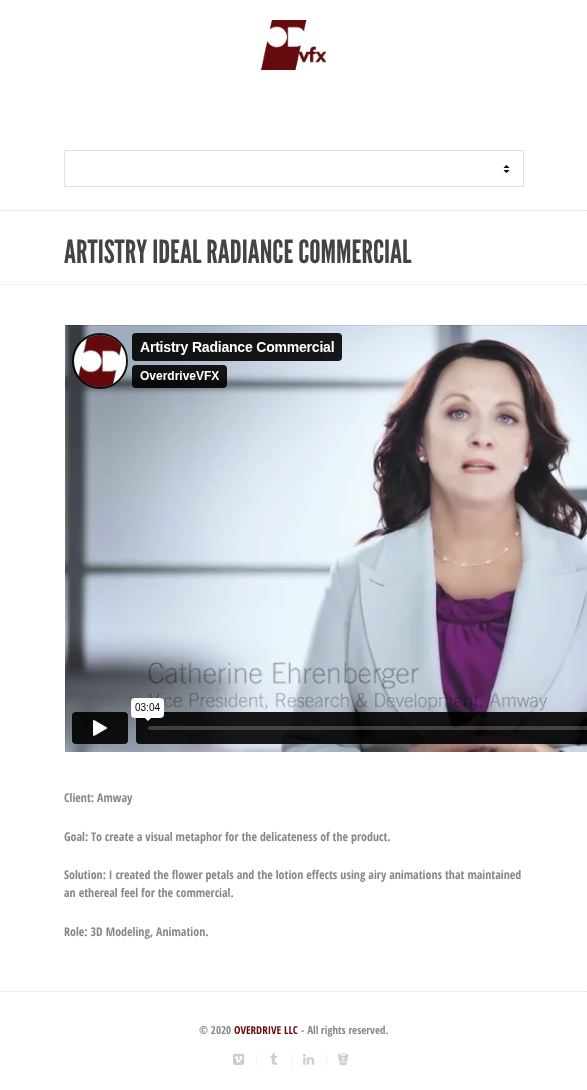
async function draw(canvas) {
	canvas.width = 587;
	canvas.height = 1090;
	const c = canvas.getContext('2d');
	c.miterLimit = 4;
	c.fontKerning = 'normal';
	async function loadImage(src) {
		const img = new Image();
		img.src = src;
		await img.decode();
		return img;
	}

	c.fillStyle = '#fff';
	c.fillRect(0, 0, 587, 1090);
	c.beginPath();
	c.moveTo(0, 210.5);
	c.lineTo(587, 210.5);
	c.strokeStyle = '#ddd';
	c.setLineDash([1, 1]);
	c.stroke();
	c.drawImage(await loadImage('img1.png'), 261, 20, 65, 50);
	c.drawImage(await loadImage('img2.png'), 503, 165, 7, 8);
	c.strokeStyle = '#e0e0e0';
	c.setLineDash([]);
	c.strokeRect(64.5, 150.5, 459, 36);
	c.beginPath();
	c.moveTo(0, 991.5);
	c.lineTo(587, 991.5);
	c.strokeStyle = '#ddd';
	c.setLineDash([1, 1]);
	c.stroke();
	c.beginPath();
	c.moveTo(0, 284.5);
	c.lineTo(587, 284.5);
	c.stroke();
	c.font = '32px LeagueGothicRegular';
	c.fillStyle = '#444';
	c.fillText('ARTISTRY IDEAL RADIANCE COMMERCIAL', 64, 263);
	c.drawImage(await loadImage('img3.png'), 65, 325, 522, 427);
	c.font = 'bold 12px Open Sans Condensed';
	c.fillStyle = '#888';
	for (const [text, x, y] of [
		['Client: Amway', 64, 802],
		['Goal: To create a visual metaphor for the delicateness of the product.', 64, 841],
		['Solution: I created the flower petals and the lotion effects using airy animations that maintained', 64, 879],
		['an ethereal feel for the commercial.', 64, 897],
		['Role: 3D Modeling, Animation.', 64, 936],
	]) {
		c.fillText(text, x, y);
	}
	c.font = 'bold 11px Open Sans Condensed';
	c.fillText('© 2020', 199, 1034);
	c.fillStyle = '#640c0d';
	c.fillText('OVERDRIVE LLC', 234, 1034);
	c.fillStyle = '#888';
	c.fillText('- All rights reserved.', 301, 1034);
	c.drawImage(await loadImage('img4.png'), 233, 1053, 12, 12);
	c.beginPath();
	c.moveTo(256.5, 1054);
	c.lineTo(256.5, 1065);
	c.strokeStyle = '#e6e6e6';
	c.stroke();
	c.drawImage(await loadImage('img5.png'), 270, 1052, 8, 13);
	c.beginPath();
	c.moveTo(291.5, 1054);
	c.lineTo(291.5, 1065);
	c.stroke();
	c.drawImage(await loadImage('img6.png'), 303, 1054, 12, 11);
	c.beginPath();
	c.moveTo(326.5, 1054);
	c.lineTo(326.5, 1065);
	c.stroke();
	c.drawImage(await loadImage('img7.png'), 338, 1053, 11, 13);
}

draw(document.querySelector('canvas'));
